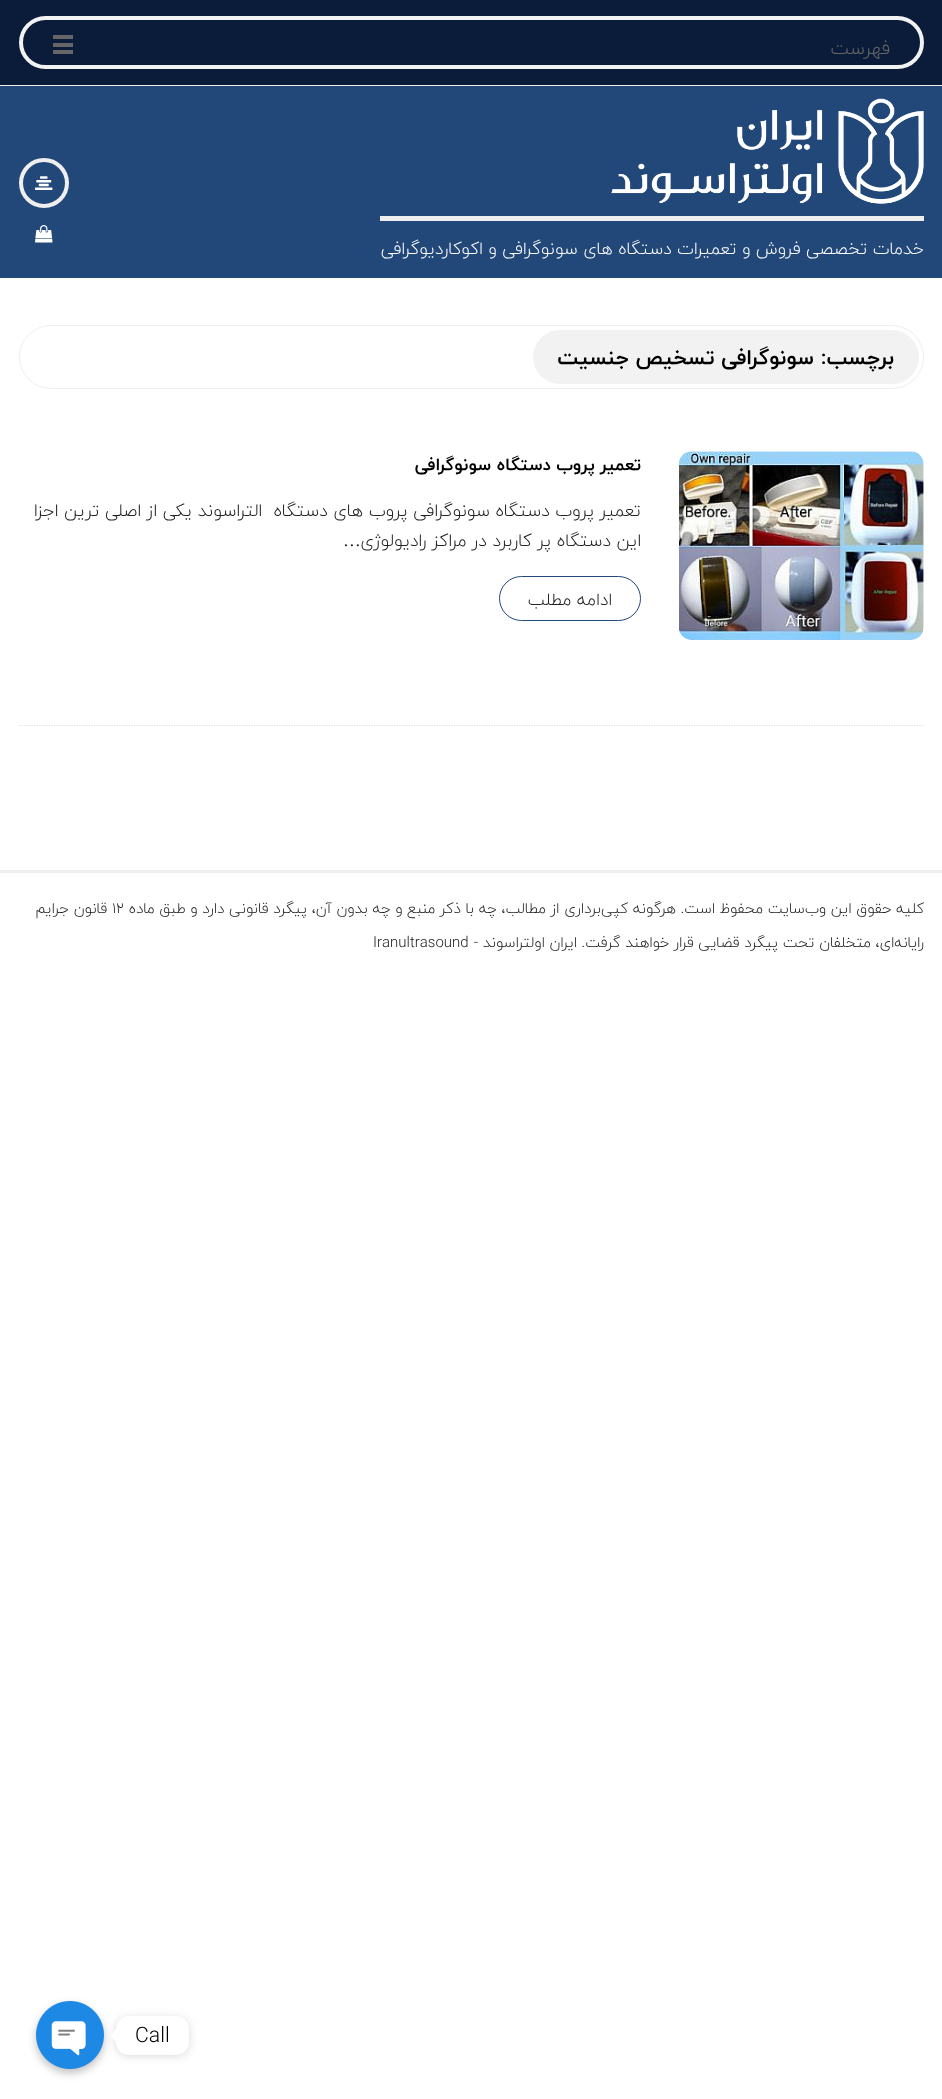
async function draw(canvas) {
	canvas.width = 942;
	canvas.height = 2099;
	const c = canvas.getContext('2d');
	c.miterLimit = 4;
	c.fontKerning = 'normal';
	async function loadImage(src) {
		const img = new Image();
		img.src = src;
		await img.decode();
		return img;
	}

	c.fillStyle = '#fff';
	c.fillRect(0, 0, 942, 2099);
	c.fillStyle = '#0a1c39';
	c.fillRect(0, 0, 942, 85);
	c.fillStyle = '#eee';
	c.fillRect(0, 85, 942, 1);
	c.beginPath();
	c.roundRect(21, 18, 901, 49, 24.5);
	c.strokeStyle = '#f2f2f2';
	c.lineWidth = 4;
	c.stroke();
	c.direction = 'rtl';
	c.font = '300 19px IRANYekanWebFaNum';
	c.fillStyle = '#666';
	c.fillText('فهرست', 890, 54);
	for (const [x, y, w, h, color] of [
		[53, 35, 20, 4, '#666'],
		[53, 43, 20, 4, '#666'],
		[53, 50, 20, 4, '#666'],
		[0, 86, 942, 192, '#22487a'],
	]) {
		c.fillStyle = color;
		c.fillRect(x, y, w, h);
	}
	c.beginPath();
	c.arc(44, 183, 23, 0, 2 * Math.PI);
	c.strokeStyle = '#efefef';
	c.stroke();
	c.drawImage(await loadImage('img1.png'), 35, 176, 18, 14);
	c.drawImage(await loadImage('img2.png'), 35, 225, 18, 18);
	c.drawImage(await loadImage('img3.png'), 611, 98, 313, 106);
	c.fillStyle = '#eee';
	c.fillRect(380, 216, 544, 5);
	c.font = '300 17.5px IRANYekanWebFaNum';
	c.fillStyle = '#fff';
	c.fillText('خدمات تخصصی فروش و تعمیرات دستگاه های سونوگرافی و اکوکاردیوگرافی', 924, 254);
	c.beginPath();
	c.roundRect(19.5, 325.5, 904, 63, 31.5);
	c.strokeStyle = '#eee';
	c.lineWidth = 1;
	c.stroke();
	c.fillStyle = '#f2f2f2';
	c.beginPath();
	c.roundRect(533, 330, 386, 54, 27);
	c.fill();
	c.font = 'bold 21.25px IRANYekanWebFaNum';
	c.fillStyle = '#000';
	c.fillText('برچسب:', 894, 364);
	c.fillText('سونوگرافی تسخیص جنسیت', 814, 364);
	c.beginPath();
	c.moveTo(19, 725.5);
	c.lineTo(924, 725.5);
	c.strokeStyle = '#ddd';
	c.lineWidth = 1.2;
	c.setLineDash([1.25, 1.25]);
	c.stroke();
	c.drawImage(await loadImage('img4.png'), 679, 451, 245, 189);
	c.font = 'bold 17.5px IRANYekanWebFaNum';
	c.fillText('تعمیر پروب دستگاه سونوگرافی', 641, 470);
	c.font = '300 17.75px IRANYekanWebFaNum';
	c.fillStyle = '#222';
	c.fillText('تعمیر پروب دستگاه سونوگرافی پروب های دستگاه  التراسوند یکی از اصلی ترین اجزا', 641, 516);
	c.fillText('این دستگاه پر کاربرد در مراکز رادیولوژی', 641, 546);
	c.direction = 'ltr';
	c.font = '17.75px Liberation Serif';
	c.fillText('…', 343, 546);
	c.beginPath();
	c.roundRect(499.5, 576.5, 141, 44, 22);
	c.strokeStyle = '#22487a';
	c.lineWidth = 1;
	c.setLineDash([]);
	c.stroke();
	c.direction = 'rtl';
	c.font = '300 17.5px IRANYekanWebFaNum';
	c.fillText('ادامه مطلب', 612, 605);
	c.fillStyle = '#efefef';
	c.fillRect(0, 870, 942, 3);
	c.font = '300 15px IRANYekanWebFaNum';
	c.fillStyle = '#222';
	c.fillText('کلیه حقوق این وب‌سایت محفوظ است. هرگونه کپی‌برداری از مطالب، چه با ذکر منبع و چه بدون آن، پیگرد قانونی دارد و طبق ماده', 924, 913);
	c.direction = 'ltr';
	c.fillText('۱۲', 112, 913);
	c.direction = 'rtl';
	for (const [text, x, y] of [
		['قانون جرایم', 107, 913],
		['رایانه‌ای، متخلفان تحت پیگرد قضایی قرار خواهند گرفت.', 924, 947],
		['ایران اولتراسوند -', 577, 947],
	]) {
		c.fillText(text, x, y);
	}
	c.direction = 'ltr';
	c.fillText('Iranultrasound', 373, 947);
	c.fillStyle = '#00000026';
	c.filter = 'blur(5px)';
	c.beginPath();
	c.roundRect(116, 2018, 73, 38, 13);
	c.fill();
	c.filter = 'none';
	c.fillStyle = '#fff';
	c.beginPath();
	c.roundRect(116, 2016, 73, 39, 13);
	c.fill();
	c.font = '300 21.25px IRANYekanWebFaNum';
	c.fillStyle = '#000';
	c.fillText('Call', 135, 2042);
	c.fillStyle = '#fff';
	c.beginPath();
	c.moveTo(116, 2029.5);
	c.lineTo(116, 2042);
	c.lineTo(110, 2035.5);
	c.closePath();
	c.fill();
	c.fillStyle = '#00000040';
	c.filter = 'blur(4px)';
	c.beginPath();
	c.roundRect(36, 2005, 68, 68, 34);
	c.fill();
	c.filter = 'none';
	c.drawImage(await loadImage('img5.png'), 36, 2001, 68, 68);
}

draw(document.querySelector('canvas'));
